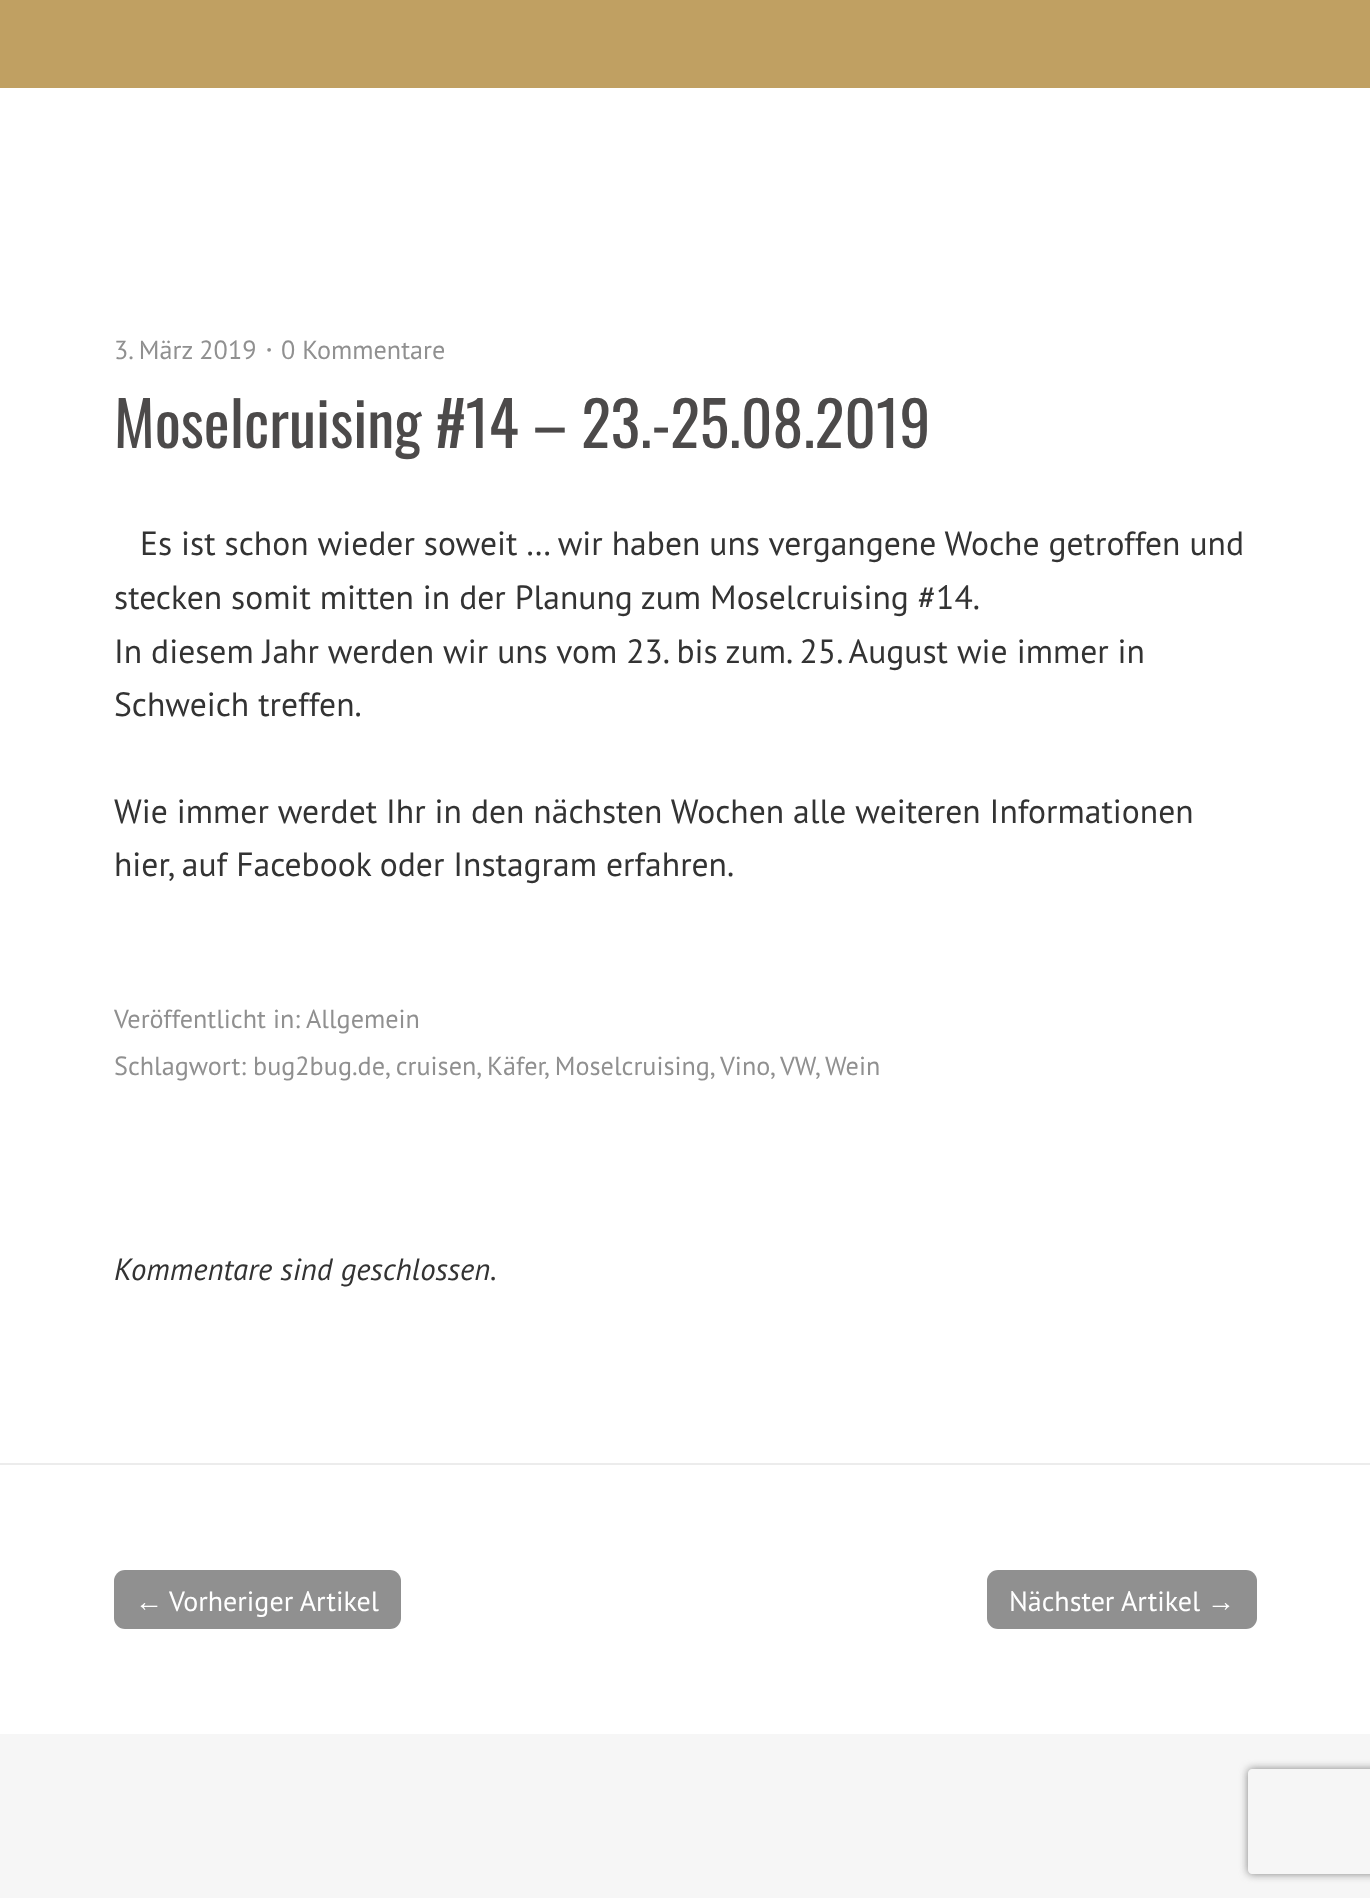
async function draw(canvas) {
	canvas.width = 1370;
	canvas.height = 1898;
	const c = canvas.getContext('2d');
	c.miterLimit = 4;
	c.fontKerning = 'normal';

	c.fillStyle = '#fff';
	c.fillRect(0, 0, 1370, 1898);
	c.fillStyle = '#c0a062';
	c.fillRect(0, 0, 1370, 88);
	c.font = '26.2px PT Sans';
	c.fillStyle = '#909090';
	c.fillText('3. März 2019', 114, 359);
	c.font = '30.75px PT Sans';
	c.fillText('·', 265, 359);
	c.font = '26.2px PT Sans';
	c.fillText('0 Kommentare', 281, 359);
	c.font = '61.6px Oswald';
	c.fillStyle = '#4c4a4a';
	c.fillText('Moselcruising #14 – 23.-25.08.2019', 114, 448);
	c.font = '33.6px PT Sans';
	c.fillStyle = '#333';
	for (const [text, x, y] of [
		['Es ist schon wieder soweit … wir haben uns vergangene Woche getroffen und', 140, 555],
		['stecken somit mitten in der Planung zum Moselcruising #14.', 114, 609],
		['In diesem Jahr werden wir uns vom 23. bis zum. 25. August wie immer in', 114, 663],
		['Schweich treffen.', 114, 716],
		['Wie immer werdet Ihr in den nächsten Wochen alle weiteren Informationen', 114, 823],
		['hier, auf Facebook oder Instagram erfahren.', 114, 876],
	]) {
		c.fillText(text, x, y);
	}
	c.font = '26.2px PT Sans';
	c.fillStyle = '#909090';
	for (const [text, x, y] of [
		['Veröffentlicht in:', 114, 1028],
		['Allgemein', 306, 1028],
		['Schlagwort: bug2bug.de, cruisen, Käfer', 114, 1075],
		[', Moselcruising,', 544, 1075],
		['Vino', 720, 1075],
		[',', 770, 1075],
		['VW', 780, 1075],
		[',', 815, 1075],
		['Wein', 825, 1075],
	]) {
		c.fillText(text, x, y);
	}
	c.font = 'italic 30.75px PT Sans';
	c.fillStyle = '#333';
	c.fillText('Kommentare sind geschlossen.', 114, 1280);
	c.fillStyle = '#ececec';
	c.fillRect(0, 1463, 1370, 2);
	c.fillStyle = '#909090';
	c.beginPath();
	c.roundRect(114, 1570, 287, 59, 11);
	c.fill();
	c.font = '28px Liberation Sans';
	c.fillStyle = '#fff';
	c.fillText('←', 135, 1611);
	c.font = '28px PT Sans';
	c.fillText('Vorheriger Artikel', 169, 1611);
	c.fillStyle = '#909090';
	c.beginPath();
	c.roundRect(987, 1570, 270, 59, 11);
	c.fill();
	c.fillStyle = '#fff';
	c.fillText('Nächster Artikel', 1009, 1611);
	c.font = '28px Liberation Sans';
	c.fillText('→', 1207, 1611);
	c.fillStyle = '#f6f6f6';
	c.fillRect(0, 1734, 1370, 164);
	c.save();
	c.beginPath();
	c.moveTo(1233, 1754);
	c.lineTo(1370, 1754);
	c.lineTo(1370, 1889);
	c.lineTo(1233, 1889);
	c.closePath();
	c.moveTo(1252, 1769);
	c.lineTo(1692, 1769);
	c.bezierCurveTo(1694, 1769, 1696, 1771, 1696, 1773);
	c.lineTo(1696, 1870);
	c.bezierCurveTo(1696, 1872, 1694, 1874, 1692, 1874);
	c.lineTo(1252, 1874);
	c.bezierCurveTo(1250, 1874, 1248, 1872, 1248, 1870);
	c.lineTo(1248, 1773);
	c.bezierCurveTo(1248, 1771, 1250, 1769, 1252, 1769);
	c.closePath();
	c.clip('evenodd');
	c.fillStyle = '#808080';
	c.filter = 'blur(4.5px)';
	c.beginPath();
	c.roundRect(1248, 1769, 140, 105, 4);
	c.fill();
	c.filter = 'none';
	c.restore();
}

draw(document.querySelector('canvas'));
